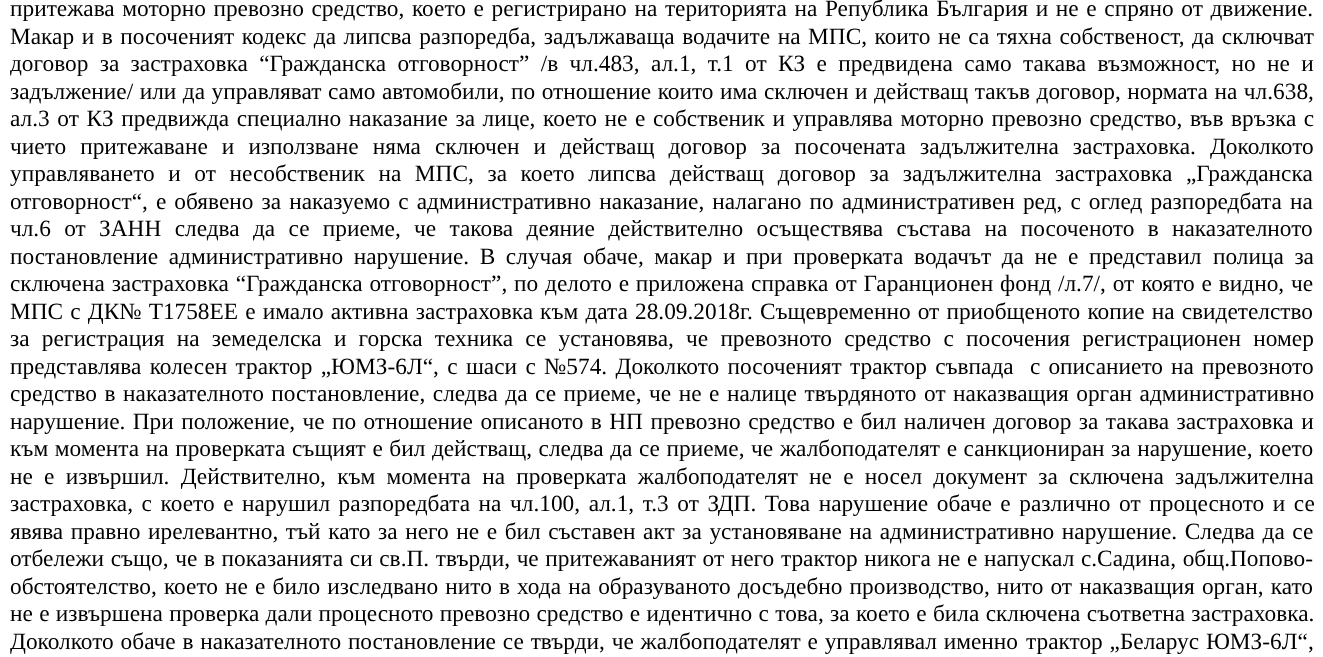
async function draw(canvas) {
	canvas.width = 1323;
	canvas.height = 657;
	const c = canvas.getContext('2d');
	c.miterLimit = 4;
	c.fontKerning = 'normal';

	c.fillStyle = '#fff';
	c.fillRect(0, 0, 1323, 657);
	c.wordSpacing = '1.8px';
	c.font = '23.33px Liberation Serif';
	c.fillStyle = '#000';
	c.fillText('притежава моторно превозно средство, което е регистрирано на територията на Република България и не е спряно от движение.', 10, 16);
	c.wordSpacing = '1.7px';
	c.fillText('Макар и в посоченият кодекс да липсва разпоредба, задължаваща водачите на МПС, които не са тяхна собственост, да сключват', 10, 44);
	c.wordSpacing = '5.5px';
	c.fillText('договор за застраховка “Гражданска отговорност” /в чл.483, ал.1, т.1 от КЗ е предвидена само такава възможност, но не и', 10, 71);
	c.wordSpacing = '0.7px';
	c.fillText('задължение/ или да управляват само автомобили, по отношение които има сключен и действащ такъв договор, нормата на чл.638,', 10, 99);
	c.wordSpacing = '1.75px';
	c.fillText('ал.3 от КЗ предвижда специално наказание за лице, което не е собственик и управлява моторно превозно средство, във връзка с', 10, 126);
	c.wordSpacing = '8.25px';
	c.fillText('чието притежаване и използване няма сключен и действащ договор за посочената задължителна застраховка. Доколкото', 10, 154);
	c.wordSpacing = '7.75px';
	c.fillText('управляването и от несобственик на МПС, за което липсва действащ договор за задължителна застраховка „Гражданска', 10, 181);
	c.wordSpacing = '2.25px';
	c.fillText('отговорност“, е обявено за наказуемо с административно наказание, налагано по административен ред, с оглед разпоредбата на', 10, 209);
	c.wordSpacing = '7.5px';
	c.fillText('чл.6 от ЗАНН следва да се приеме, че такова деяние действително осъществява състава на посоченото в наказателното', 10, 236);
	c.wordSpacing = '4.75px';
	c.fillText('постановление административно нарушение. В случая обаче, макар и при проверката водачът да не е представил', 10, 264);
	c.fillText('полица за', 1213, 264);
	c.wordSpacing = '1px';
	c.fillText('сключена застраховка “Гражданска отговорност”, по делото е приложена справка от Гаранционен фонд /л.7/, от която е видно, че', 10, 291);
	c.wordSpacing = '1.3px';
	c.fillText('МПС с ДК№ Т1758ЕЕ е имало активна застраховка към дата 28.09.2018г. Същевременно от приобщеното копие на свидетелство', 10, 319);
	c.wordSpacing = '6.4px';
	c.fillText('за регистрация на земеделска и горска техника се установява, че превозното средство с посочения регистрационен номер', 10, 346);
	c.wordSpacing = '2.5px';
	c.fillText('представлява колесен трактор „ЮМЗ-6Л“, с шаси с №574. Доколкото посоченият трактор съвпада', 10, 374);
	c.wordSpacing = '2.25px';
	c.fillText('с описанието на превозното', 1030, 374);
	c.wordSpacing = '1.7px';
	c.fillText('средство в наказателното постановление, следва да се приеме, че не е налице твърдяното от наказващия орган административно', 10, 401);
	c.wordSpacing = '1.6px';
	c.fillText('нарушение. При положение, че по отношение описаното в НП превозно средство е бил наличен договор за такава застраховка и', 10, 429);
	c.wordSpacing = '0.75px';
	c.fillText('към момента на проверката същият е бил действащ, следва да се приеме, че', 10, 456);
	c.fillText('жалбоподателят е санкциониран за нарушение, което', 780, 456);
	c.wordSpacing = '5.4px';
	c.fillText('не е извършил. Действително, към момента на проверката жалбоподателят не е носел документ за сключена задължителна', 10, 484);
	c.wordSpacing = '2.75px';
	c.fillText('застраховка, с което е нарушил разпоредбата на чл.100, ал.1, т.3 от ЗДП. Това нарушение обаче е различно от процесното и се', 10, 511);
	c.wordSpacing = '1.75px';
	c.fillText('явява правно ирелевантно, тъй като за него не е бил съставен акт за установяване на административно нарушение. Следва да се', 10, 539);
	c.wordSpacing = '0.8px';
	c.fillText('отбележи също, че в показанията си св.П. твърди, че притежаваният от него трактор никога не е напускал с.Садина, общ.Попово-', 10, 566);
	c.wordSpacing = '1.3px';
	c.fillText('обстоятелство, което не е било изследвано нито в хода на образуваното досъдебно производство, нито от наказващия орган, като', 10, 594);
	c.wordSpacing = '0.5px';
	c.fillText('не е извършена проверка дали процесното превозно средство е идентично с това, за което е била сключена съответна застраховка.', 10, 621);
	c.wordSpacing = '1px';
	c.fillText('Доколкото обаче в наказателното постановление се твърди, че жалбоподателят е управлявал именно', 10, 649);
	c.fillText('трактор „Беларус ЮМЗ-6Л“,', 1026, 649);
}

draw(document.querySelector('canvas'));
